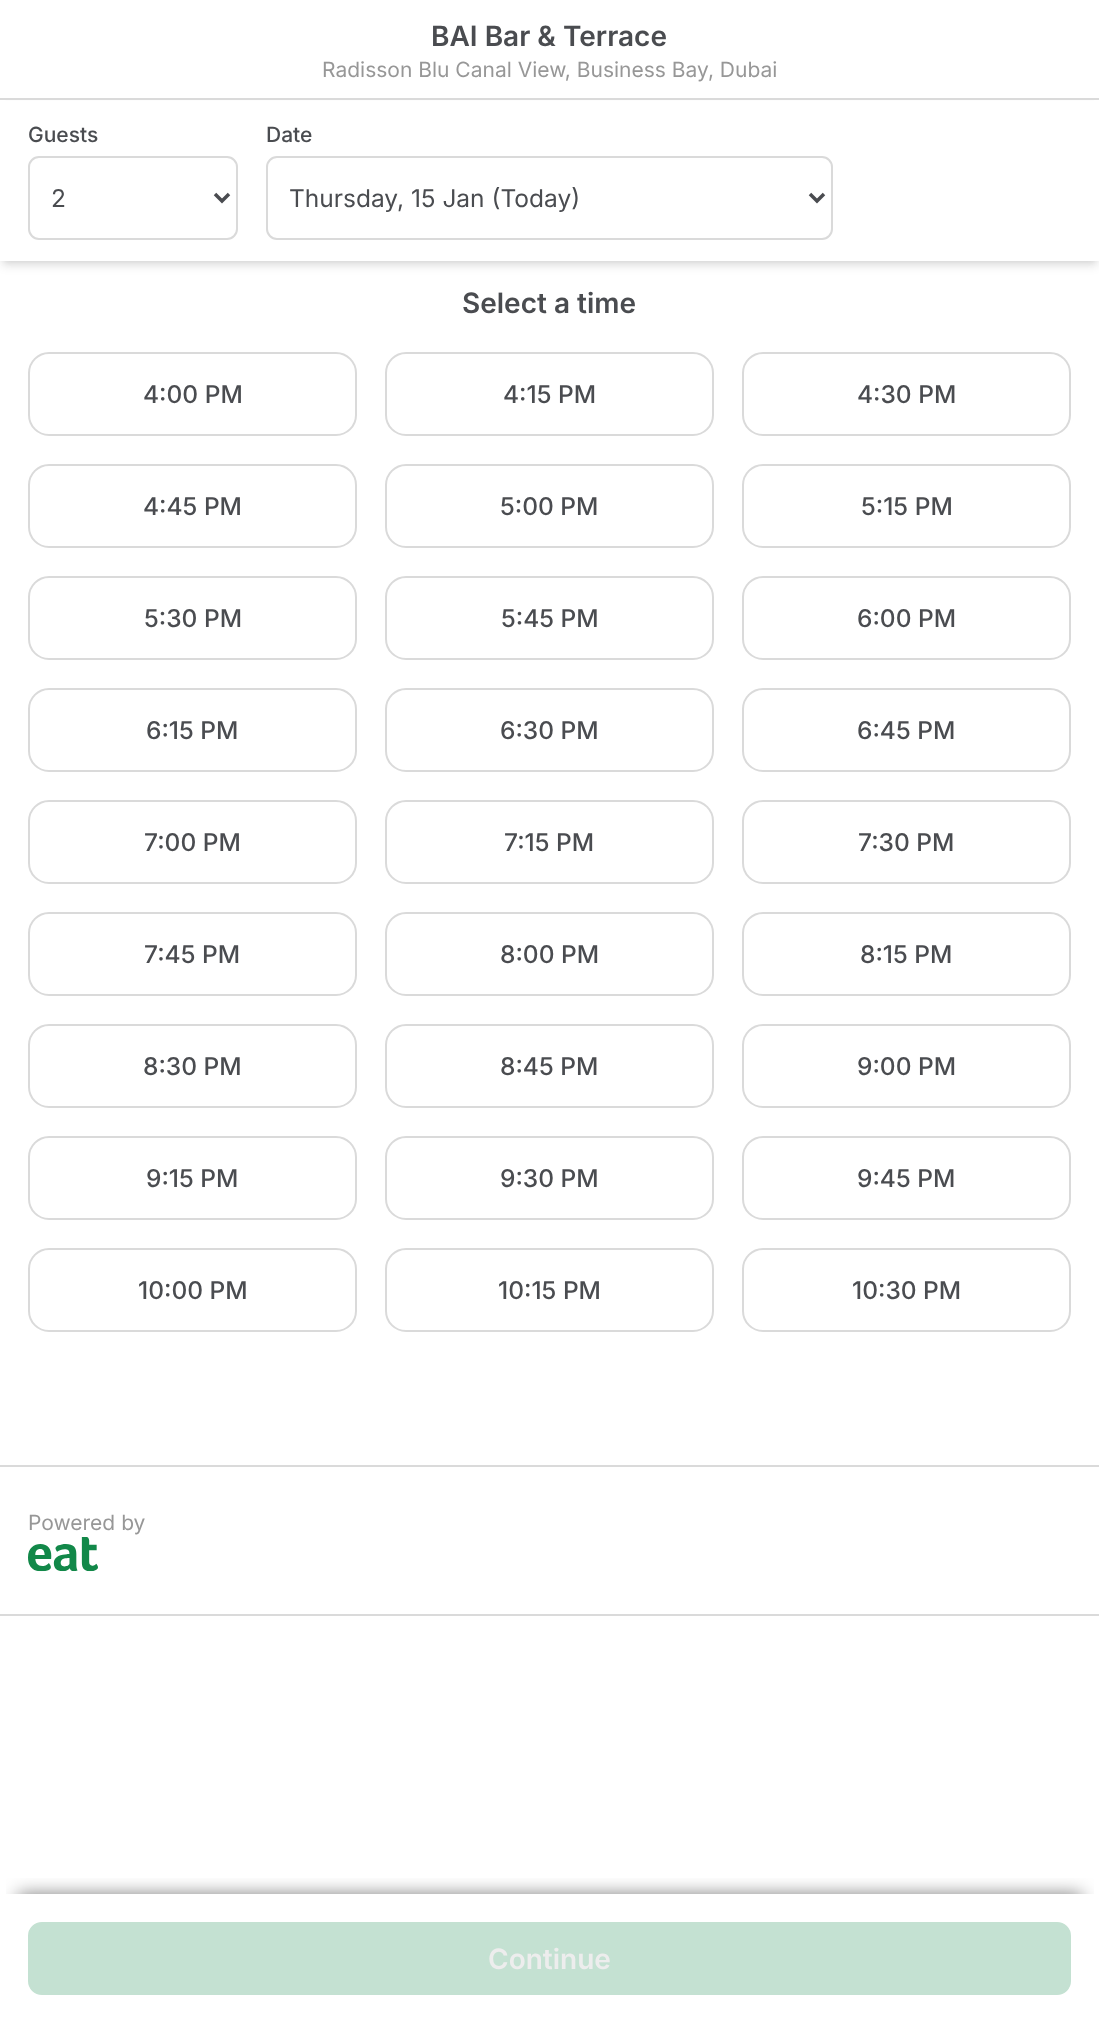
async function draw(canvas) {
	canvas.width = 1099;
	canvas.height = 2022;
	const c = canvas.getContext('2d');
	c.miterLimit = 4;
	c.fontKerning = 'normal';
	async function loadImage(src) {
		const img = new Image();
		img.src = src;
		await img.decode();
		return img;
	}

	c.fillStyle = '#fff';
	c.fillRect(0, 0, 1099, 2022);
	c.font = '600 28px Inter';
	c.fillStyle = '#4a4c50';
	c.fillText('BAI Bar & Terrace', 431, 46);
	c.font = '21px Inter';
	c.fillStyle = '#979797';
	c.fillText('Radisson Blu Canal View, Business Bay, Dubai', 322, 77);
	c.fillStyle = '#dadada';
	c.fillRect(0, 98, 1099, 2);
	c.fillStyle = '#0000001a';
	c.filter = 'blur(3.5px)';
	c.beginPath();
	c.rect(4, 107, 1092, 154);
	c.fill();
	c.filter = 'none';
	c.filter = 'blur(5px)';
	c.beginPath();
	c.rect(2, 109, 1095, 157);
	c.fill();
	c.filter = 'none';
	c.fillStyle = '#fff';
	c.fillRect(0, 101, 1099, 160);
	c.font = '500 21px Inter';
	c.fillStyle = '#4a4c50';
	c.fillText('Guests', 28, 142);
	c.beginPath();
	c.roundRect(29, 157, 208, 82, 10);
	c.strokeStyle = '#dadada';
	c.lineWidth = 2;
	c.stroke();
	c.beginPath();
	c.moveTo(215, 194);
	c.lineTo(222, 201);
	c.lineTo(229, 194);
	c.strokeStyle = '#4a4c50';
	c.lineWidth = 3.5;
	c.stroke();
	c.font = '24.5px Inter';
	c.fillText('2', 51, 207);
	c.font = '500 21px Inter';
	c.fillText('Date', 266, 142);
	c.beginPath();
	c.roundRect(267, 157, 565, 82, 10);
	c.strokeStyle = '#dadada';
	c.lineWidth = 2;
	c.stroke();
	c.beginPath();
	c.moveTo(810, 194);
	c.lineTo(817, 201);
	c.lineTo(824, 194);
	c.strokeStyle = '#4a4c50';
	c.lineWidth = 3.5;
	c.stroke();
	c.font = '24.5px Inter';
	c.fillText('Thursday, 15 Jan (Today)', 289, 207);
	c.fillStyle = '#dadada';
	c.fillRect(0, 1465, 1099, 2);
	c.font = '600 28px Inter';
	c.fillStyle = '#4a4c50';
	c.fillText('Select a time', 462, 313);
	c.beginPath();
	c.roundRect(29, 353, 327, 82, 20);
	c.strokeStyle = '#dadada';
	c.lineWidth = 2;
	c.stroke();
	c.font = '500 24.5px Inter';
	c.fillText('4:00 PM', 143, 403);
	c.beginPath();
	c.roundRect(386, 353, 327, 82, 20);
	c.stroke();
	c.fillText('4:15 PM', 503, 403);
	c.beginPath();
	c.roundRect(743, 353, 327, 82, 20);
	c.stroke();
	c.fillText('4:30 PM', 857, 403);
	c.beginPath();
	c.roundRect(29, 465, 327, 82, 20);
	c.stroke();
	c.fillText('4:45 PM', 143, 515);
	c.beginPath();
	c.roundRect(386, 465, 327, 82, 20);
	c.stroke();
	c.fillText('5:00 PM', 500, 515);
	c.beginPath();
	c.roundRect(743, 465, 327, 82, 20);
	c.stroke();
	c.fillText('5:15 PM', 861, 515);
	c.beginPath();
	c.roundRect(29, 577, 327, 82, 20);
	c.stroke();
	c.fillText('5:30 PM', 144, 627);
	c.beginPath();
	c.roundRect(386, 577, 327, 82, 20);
	c.stroke();
	c.fillText('5:45 PM', 501, 627);
	c.beginPath();
	c.roundRect(743, 577, 327, 82, 20);
	c.stroke();
	c.fillText('6:00 PM', 857, 627);
	c.beginPath();
	c.roundRect(29, 689, 327, 82, 20);
	c.stroke();
	c.fillText('6:15 PM', 146, 739);
	c.beginPath();
	c.roundRect(386, 689, 327, 82, 20);
	c.stroke();
	c.fillText('6:30 PM', 500, 739);
	c.beginPath();
	c.roundRect(743, 689, 327, 82, 20);
	c.stroke();
	c.fillText('6:45 PM', 857, 739);
	c.beginPath();
	c.roundRect(29, 801, 327, 82, 20);
	c.stroke();
	c.fillText('7:00 PM', 144, 851);
	c.beginPath();
	c.roundRect(386, 801, 327, 82, 20);
	c.stroke();
	c.fillText('7:15 PM', 504, 851);
	c.beginPath();
	c.roundRect(743, 801, 327, 82, 20);
	c.stroke();
	c.fillText('7:30 PM', 858, 851);
	c.beginPath();
	c.roundRect(29, 913, 327, 82, 20);
	c.stroke();
	c.fillText('7:45 PM', 144, 963);
	c.beginPath();
	c.roundRect(386, 913, 327, 82, 20);
	c.stroke();
	c.fillText('8:00 PM', 500, 963);
	c.beginPath();
	c.roundRect(743, 913, 327, 82, 20);
	c.stroke();
	c.fillText('8:15 PM', 860, 963);
	c.beginPath();
	c.roundRect(29, 1025, 327, 82, 20);
	c.stroke();
	c.fillText('8:30 PM', 143, 1075);
	c.beginPath();
	c.roundRect(386, 1025, 327, 82, 20);
	c.stroke();
	c.fillText('8:45 PM', 500, 1075);
	c.beginPath();
	c.roundRect(743, 1025, 327, 82, 20);
	c.stroke();
	c.fillText('9:00 PM', 857, 1075);
	c.beginPath();
	c.roundRect(29, 1137, 327, 82, 20);
	c.stroke();
	c.fillText('9:15 PM', 146, 1187);
	c.beginPath();
	c.roundRect(386, 1137, 327, 82, 20);
	c.stroke();
	c.fillText('9:30 PM', 500, 1187);
	c.beginPath();
	c.roundRect(743, 1137, 327, 82, 20);
	c.stroke();
	c.fillText('9:45 PM', 857, 1187);
	c.beginPath();
	c.roundRect(29, 1249, 327, 82, 20);
	c.stroke();
	c.fillText('10:00 PM', 138, 1299);
	c.beginPath();
	c.roundRect(386, 1249, 327, 82, 20);
	c.stroke();
	c.fillText('10:15 PM', 498, 1299);
	c.beginPath();
	c.roundRect(743, 1249, 327, 82, 20);
	c.stroke();
	c.fillText('10:30 PM', 852, 1299);
	c.font = '21px Inter';
	c.fillStyle = '#979797';
	c.fillText('Powered by', 28, 1530);
	c.drawImage(await loadImage('img1.png'), 28, 1537, 70, 35);
	c.fillStyle = '#dadada';
	c.fillRect(0, 1614, 1099, 2);
	c.save();
	c.beginPath();
	c.rect(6, 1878, 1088, 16);
	c.clip();
	c.fillStyle = '#00000080';
	c.filter = 'blur(9px)';
	c.beginPath();
	c.rect(18, 1894, 1064, 94);
	c.fill();
	c.filter = 'none';
	c.restore();
	c.fillStyle = '#c4e1d2';
	c.beginPath();
	c.roundRect(29, 1923, 1041, 71, 13);
	c.fill();
	c.strokeStyle = '#c4e1d2';
	c.stroke();
	c.font = '600 28px Inter';
	c.fillStyle = '#ededed';
	c.fillText('Continue', 488, 1969);
}

draw(document.querySelector('canvas'));
